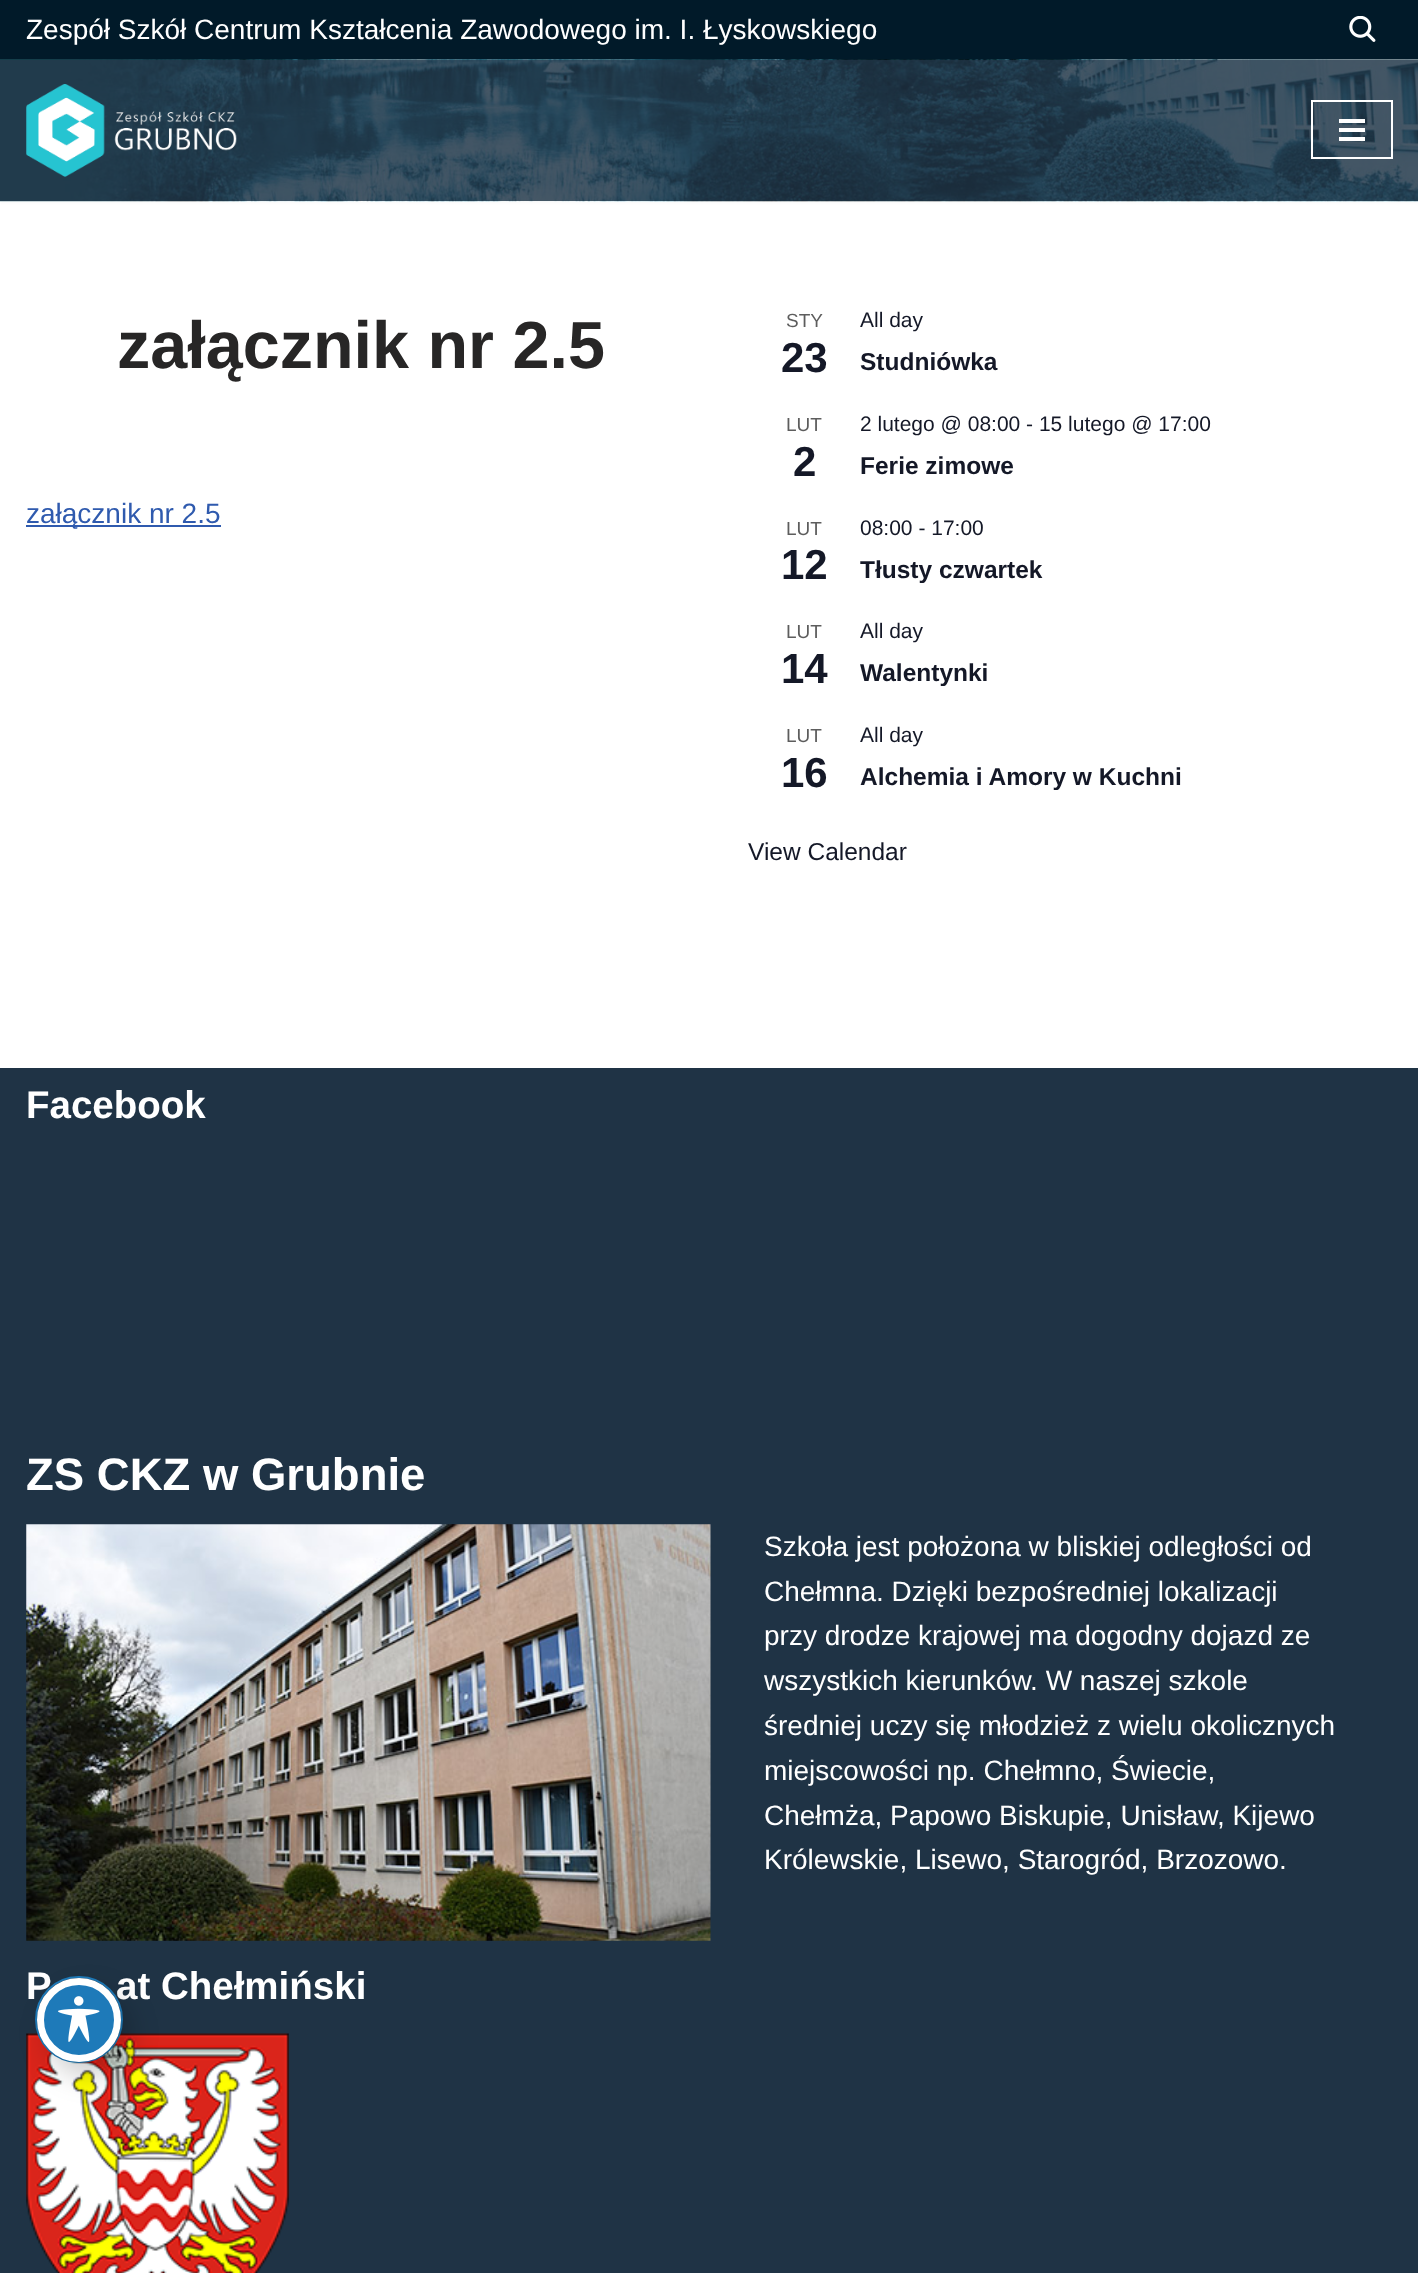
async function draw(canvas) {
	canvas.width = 1418;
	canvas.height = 2273;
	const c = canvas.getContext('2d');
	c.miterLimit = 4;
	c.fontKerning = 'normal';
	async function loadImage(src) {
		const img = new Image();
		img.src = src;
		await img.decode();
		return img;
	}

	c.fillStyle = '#fff';
	c.fillRect(0, 0, 1418, 2273);
	c.fillStyle = '#0000001a';
	c.filter = 'blur(2.5px)';
	c.beginPath();
	c.rect(0, -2, 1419, 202);
	c.fill();
	c.filter = 'none';
	c.fillStyle = '#011a29';
	c.fillRect(0, 0, 1418, 60);
	c.font = '28px Liberation Sans';
	c.fillStyle = '#fff';
	c.fillText('Zespół Szkół Centrum Kształcenia Zawodowego im. I. Łyskowskiego', 26, 39);
	c.drawImage(await loadImage('img1.png'), 1349, 16, 27, 26);
	c.drawImage(await loadImage('img2.png'), 0, 59, 1418, 143);
	c.drawImage(await loadImage('img3.png'), 26, 84, 211, 93);
	c.strokeStyle = '#fff';
	c.lineWidth = 2;
	c.strokeRect(1312, 101, 80, 57);
	for (const [x, y, w, h, color] of [
		[1339, 119, 26, 4, '#fff'],
		[1339, 128, 26, 4, '#fff'],
		[1339, 137, 26, 4, '#fff'],
	]) {
		c.fillStyle = color;
		c.fillRect(x, y, w, h);
	}
	c.font = 'bold 66.5px Liberation Sans';
	c.fillStyle = '#272626';
	c.fillText('załącznik nr 2.5', 117, 368);
	c.fillStyle = '#2f5aae';
	c.fillRect(26, 525, 195, 2);
	c.font = '28px Liberation Sans';
	c.fillText('załącznik nr 2.5', 26, 523);
	c.font = '19px Liberation Sans';
	c.fillStyle = '#5d5d5d';
	c.fillText('STY', 786, 327);
	c.font = 'bold 42px Liberation Sans';
	c.fillStyle = '#141827';
	c.fillText('23', 781, 372);
	c.font = '21px Liberation Sans';
	c.fillText('All day', 860, 327);
	c.font = 'bold 24.5px Liberation Sans';
	c.fillText('Studniówka', 860, 370);
	c.font = '19px Liberation Sans';
	c.fillStyle = '#5d5d5d';
	c.fillText('LUT', 786, 431);
	c.font = 'bold 42px Liberation Sans';
	c.fillStyle = '#141827';
	c.fillText('2', 793, 476);
	c.font = '21px Liberation Sans';
	c.fillText('2 lutego @ 08:00 - 15 lutego @ 17:00', 860, 431);
	c.font = 'bold 24.5px Liberation Sans';
	c.fillText('Ferie zimowe', 860, 474);
	c.font = '19px Liberation Sans';
	c.fillStyle = '#5d5d5d';
	c.fillText('LUT', 786, 535);
	c.font = 'bold 42px Liberation Sans';
	c.fillStyle = '#141827';
	c.fillText('12', 781, 579);
	c.font = '21px Liberation Sans';
	c.fillText('08:00 - 17:00', 860, 535);
	c.font = 'bold 24.5px Liberation Sans';
	c.fillText('Tłusty czwartek', 860, 578);
	c.font = '19px Liberation Sans';
	c.fillStyle = '#5d5d5d';
	c.fillText('LUT', 786, 638);
	c.font = 'bold 42px Liberation Sans';
	c.fillStyle = '#141827';
	c.fillText('14', 781, 683);
	c.font = '21px Liberation Sans';
	c.fillText('All day', 860, 638);
	c.font = 'bold 24.5px Liberation Sans';
	c.fillText('Walentynki', 860, 681);
	c.font = '19px Liberation Sans';
	c.fillStyle = '#5d5d5d';
	c.fillText('LUT', 786, 742);
	c.font = 'bold 42px Liberation Sans';
	c.fillStyle = '#141827';
	c.fillText('16', 781, 787);
	c.font = '21px Liberation Sans';
	c.fillText('All day', 860, 742);
	c.font = 'bold 24.5px Liberation Sans';
	c.fillText('Alchemia i Amory w Kuchni', 860, 785);
	c.font = '24.5px Liberation Sans';
	c.fillText('View Calendar', 748, 860);
	c.fillStyle = '#1f3345';
	c.fillRect(0, 1068, 1418, 1205);
	c.font = 'bold 38.5px Liberation Sans';
	c.fillStyle = '#fff';
	c.fillText('Facebook', 26, 1118);
	c.font = 'bold 45.5px Liberation Sans';
	c.fillText('ZS CKZ w Grubnie', 26, 1490);
	c.drawImage(await loadImage('img4.png'), 26, 1524, 685, 417);
	c.font = '28px Liberation Sans';
	for (const [text, x, y] of [
		['Szkoła jest położona w bliskiej odległości od', 764, 1556],
		['Chełmna. Dzięki bezpośredniej lokalizacji', 764, 1601],
		['przy drodze krajowej ma dogodny dojazd ze', 764, 1645],
		['wszystkich kierunków. W naszej szkole', 764, 1690],
		['średniej uczy się młodzież z wielu okolicznych', 764, 1735],
		['miejscowości np. Chełmno, Świecie,', 764, 1780],
		['Chełmża, Papowo Biskupie, Unisław, Kijewo', 764, 1825],
		['Królewskie, Lisewo, Starogród, Brzozowo.', 764, 1869],
	]) {
		c.fillText(text, x, y);
	}
	c.font = 'bold 38.5px Liberation Sans';
	c.fillText('P', 26, 1999);
	c.fillText('at Chełmiński', 116, 1999);
	c.drawImage(await loadImage('img5.png'), 26, 2033, 263, 240);
	c.beginPath();
	c.roundRect(36, 1977, 86, 85, 42.5);
	c.strokeStyle = '#1e7ab9';
	c.stroke();
	c.fillStyle = '#00000033';
	c.filter = 'blur(14px)';
	c.beginPath();
	c.roundRect(47, 1992, 84, 84, 42);
	c.fill();
	c.filter = 'none';
	c.fillStyle = '#1e7ab9';
	c.beginPath();
	c.arc(79, 2020, 38.5, 0, 2 * Math.PI);
	c.fill();
	c.strokeStyle = '#fff';
	c.lineWidth = 7;
	c.stroke();
	c.drawImage(await loadImage('img6.png'), 58, 1996, 42, 46);
}

draw(document.querySelector('canvas'));
